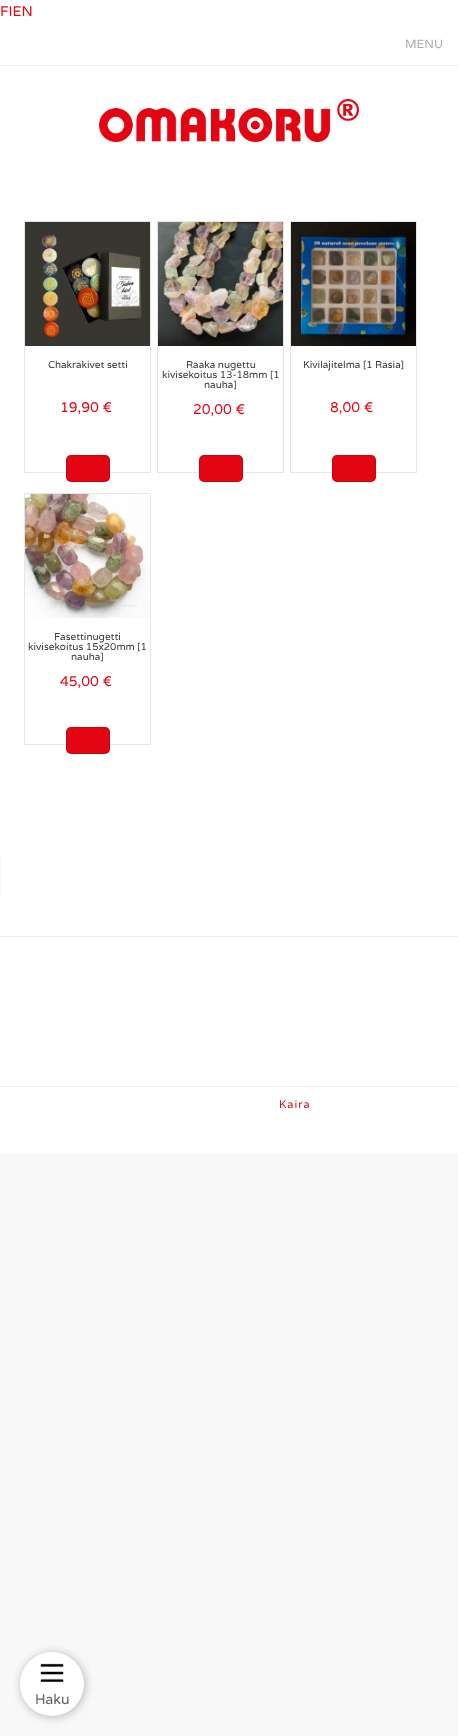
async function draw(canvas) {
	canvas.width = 458;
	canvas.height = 1736;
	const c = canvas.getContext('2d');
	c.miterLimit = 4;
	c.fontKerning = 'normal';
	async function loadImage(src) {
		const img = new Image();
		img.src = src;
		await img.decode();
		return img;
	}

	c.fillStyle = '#f8f8f8';
	c.fillRect(0, 0, 458, 1736);
	c.fillStyle = '#fff';
	c.fillRect(0, 0, 458, 1154);
	c.font = '14px Varela';
	c.fillStyle = '#e30612';
	c.fillText('FIEN', 0, 16);
	c.fillStyle = '#ebebeb';
	c.fillRect(0, 65, 458, 1);
	c.font = '12px Varela';
	c.fillStyle = '#aaa';
	c.fillText('MENU', 405, 48);
	c.drawImage(await loadImage('img1.png'), 99, 99, 260, 43);
	c.strokeStyle = '#e6e6e6';
	c.strokeRect(24.5, 221.5, 126, 251);
	c.drawImage(await loadImage('img2.png'), 25, 222, 125, 124);
	c.font = '10px Varela';
	c.fillStyle = '#3a3a3a';
	c.fillText('Chakrakivet setti', 48, 368);
	c.font = '14px Varela';
	c.fillStyle = '#e30612';
	c.fillText('19,90 €', 60, 412);
	c.beginPath();
	c.roundRect(66, 455, 44, 27, 5);
	c.fill();
	c.beginPath();
	c.roundRect(66.5, 455.5, 43, 26, 4.5);
	c.strokeStyle = '#0000001a';
	c.stroke();
	c.strokeStyle = '#e6e6e6';
	c.strokeRect(157.5, 221.5, 126, 251);
	c.drawImage(await loadImage('img3.png'), 158, 222, 125, 124);
	c.font = '10px Varela';
	c.fillStyle = '#3a3a3a';
	for (const [text, x, y] of [
		['Raaka nugettu', 186, 368],
		['kivisekoitus 13-18mm [1', 162, 378],
		['nauha]', 204, 388],
	]) {
		c.fillText(text, x, y);
	}
	c.font = '14px Varela';
	c.fillStyle = '#e30612';
	c.fillText('20,00 €', 193, 414);
	c.beginPath();
	c.roundRect(199, 455, 44, 27, 5);
	c.fill();
	c.beginPath();
	c.roundRect(199.5, 455.5, 43, 26, 4.5);
	c.strokeStyle = '#0000001a';
	c.stroke();
	c.strokeStyle = '#e6e6e6';
	c.strokeRect(290.5, 221.5, 126, 251);
	c.drawImage(await loadImage('img4.png'), 291, 222, 125, 124);
	c.font = '10px Varela';
	c.fillStyle = '#3a3a3a';
	c.fillText('Kivilajitelma [1 Rasia]', 303, 368);
	c.font = '14px Varela';
	c.fillStyle = '#e30612';
	c.fillText('8,00 €', 330, 412);
	c.beginPath();
	c.roundRect(332, 455, 44, 27, 5);
	c.fill();
	c.beginPath();
	c.roundRect(332.5, 455.5, 43, 26, 4.5);
	c.strokeStyle = '#0000001a';
	c.stroke();
	c.strokeStyle = '#e6e6e6';
	c.strokeRect(24.5, 493.5, 126, 251);
	c.drawImage(await loadImage('img5.png'), 25, 494, 125, 124);
	c.font = '10px Varela';
	c.fillStyle = '#3a3a3a';
	for (const [text, x, y] of [
		['Fasettinugetti', 54, 640],
		['kivisekoitus 15x20mm [1', 28, 650],
		['nauha]', 71, 660],
	]) {
		c.fillText(text, x, y);
	}
	c.font = '14px Varela';
	c.fillStyle = '#e30612';
	c.fillText('45,00 €', 60, 686);
	c.beginPath();
	c.roundRect(66, 727, 44, 27, 5);
	c.fill();
	c.beginPath();
	c.roundRect(66.5, 727.5, 43, 26, 4.5);
	c.strokeStyle = '#0000001a';
	c.stroke();
	for (const [x, y, w, h, color] of [
		[0, 856, 1, 40, '#f7f7f7'],
		[0, 936, 458, 1, '#ebebeb'],
		[0, 1086, 458, 1, '#ebebeb'],
	]) {
		c.fillStyle = color;
		c.fillRect(x, y, w, h);
	}
	c.letterSpacing = '1px';
	c.font = '11px Varela';
	c.fillStyle = '#e30612';
	c.fillText('Kaira', 279, 1108);
	c.fillStyle = '#b4b4b4';
	c.filter = 'blur(5px)';
	c.beginPath();
	c.roundRect(21, 1653, 64, 64, 32);
	c.fill();
	c.filter = 'none';
	c.fillStyle = '#fff';
	c.beginPath();
	c.arc(52, 1684, 32, 0, 2 * Math.PI);
	c.fill();
	c.drawImage(await loadImage('img6.png'), 40, 1663, 24, 19);
	c.letterSpacing = '0px';
	c.font = '14px Varela';
	c.fillStyle = '#636161';
	c.fillText('Haku', 35, 1704);
}

draw(document.querySelector('canvas'));
